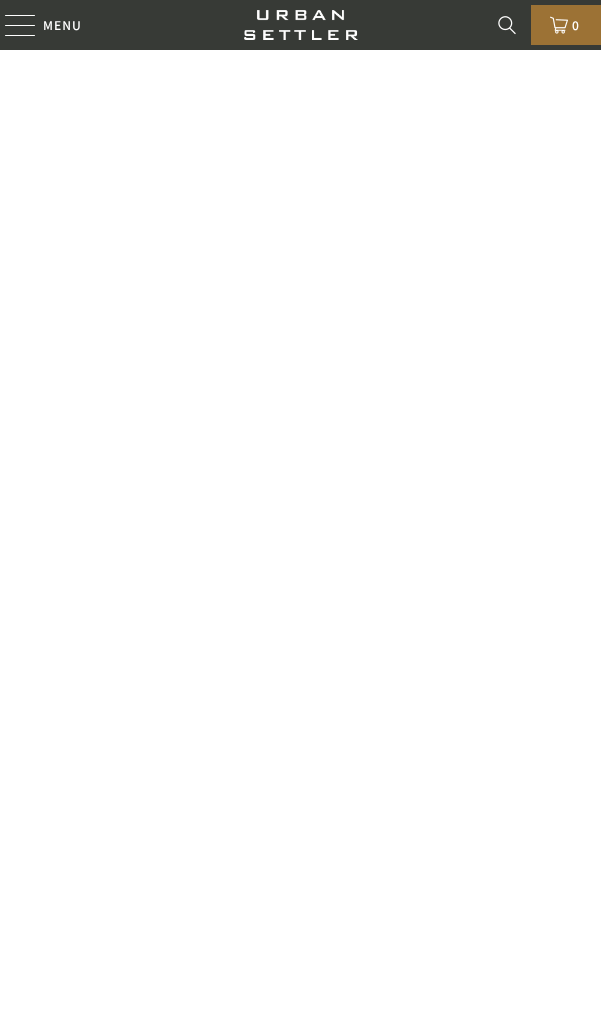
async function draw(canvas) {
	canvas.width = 601;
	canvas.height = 1009;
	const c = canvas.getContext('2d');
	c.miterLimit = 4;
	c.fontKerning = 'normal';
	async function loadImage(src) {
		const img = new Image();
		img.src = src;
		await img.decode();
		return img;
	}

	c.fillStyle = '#fff';
	c.fillRect(0, 0, 601, 1009);
	c.fillStyle = '#373a36';
	c.fillRect(0, 0, 601, 50);
	c.fillStyle = '#fff';
	c.beginPath();
	c.roundRect(5, 15, 30, 1, 0.5);
	c.fill();
	c.beginPath();
	c.roundRect(5, 25, 30, 1, 0.5);
	c.fill();
	c.beginPath();
	c.roundRect(5, 35, 30, 1, 0.5);
	c.fill();
	c.letterSpacing = '1px';
	c.font = '500 12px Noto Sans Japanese';
	c.fillText('MENU', 43, 30);
	c.drawImage(await loadImage('img1.png'), 244, 10, 114, 30);
	c.drawImage(await loadImage('img2.png'), 498, 16, 18, 19);
	c.fillStyle = '#9c7235';
	c.fillRect(531, 5, 70, 40);
	c.drawImage(await loadImage('img3.png'), 550, 16, 18, 18);
	c.fillStyle = '#fff';
	c.fillText('0', 572, 30);
}

draw(document.querySelector('canvas'));
